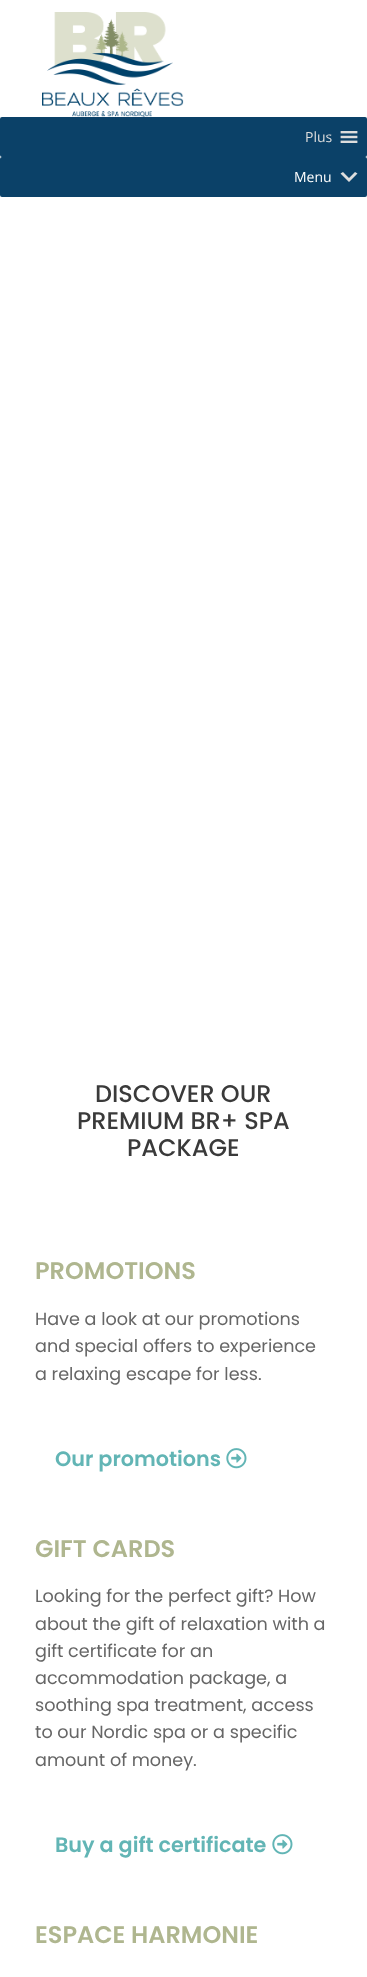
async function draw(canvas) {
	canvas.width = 367;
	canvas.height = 1977;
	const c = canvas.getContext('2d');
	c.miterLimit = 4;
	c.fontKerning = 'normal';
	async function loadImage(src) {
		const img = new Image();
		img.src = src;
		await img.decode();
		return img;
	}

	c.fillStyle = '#fff';
	c.fillRect(0, 0, 367, 1977);
	c.drawImage(await loadImage('img1.png'), 42, 12, 142, 105);
	c.fillStyle = '#0b4168';
	c.beginPath();
	c.roundRect(0, 117, 367, 40, 2);
	c.fill();
	c.font = '14px Open Sans';
	c.fillStyle = '#ddd';
	c.fillText('Plus', 305, 142);
	c.drawImage(await loadImage('img2.png'), 340, 131, 18, 12);
	c.fillStyle = '#0b4168';
	c.beginPath();
	c.roundRect(0, 157, 367, 40, 2);
	c.fill();
	c.fillStyle = '#fff';
	c.fillText('Menu', 294, 182);
	c.fillStyle = '#ddd';
	c.beginPath();
	c.moveTo(343, 172);
	c.lineTo(349, 178);
	c.lineTo(355, 172);
	c.lineTo(357.5, 173.5);
	c.lineTo(349, 182);
	c.lineTo(340.5, 173.5);
	c.closePath();
	c.fill();
	c.font = '500 24px Poppins';
	c.fillStyle = '#3a3a3a';
	for (const [text, x, y] of [
		['DISCOVER OUR', 95, 1102],
		['PREMIUM BR+ SPA', 77, 1129],
		['PACKAGE', 127, 1156],
	]) {
		c.fillText(text, x, y);
	}
	c.font = '600 24px Poppins';
	c.fillStyle = '#afb68f';
	c.fillText('PROMOTIONS', 35, 1279);
	c.font = '17.6px Poppins';
	c.fillStyle = '#666';
	for (const [text, x, y] of [
		['Have a look at our promotions', 35, 1325],
		['and special offers to experience', 35, 1352],
		['a relaxing escape for less.', 35, 1380],
	]) {
		c.fillText(text, x, y);
	}
	c.font = '600 20.75px Poppins';
	c.fillStyle = '#62b5b5';
	c.fillText('Our promotions', 55, 1466);
	c.drawImage(await loadImage('img3.png'), 226, 1448, 21, 21);
	c.font = '600 24px Poppins';
	c.fillStyle = '#afb68f';
	c.fillText('GIFT CARDS', 35, 1557);
	c.font = '17.6px Poppins';
	c.fillStyle = '#666';
	for (const [text, x, y] of [
		['Looking for the perfect gift? How', 35, 1602],
		['about the gift of relaxation with a', 35, 1630],
		['gift certificate for an', 35, 1657],
		['accommodation package, a', 35, 1684],
		['soothing spa treatment, access', 35, 1711],
		['to our Nordic spa or a specific', 35, 1738],
		['amount of money.', 35, 1766],
	]) {
		c.fillText(text, x, y);
	}
	c.font = '600 20.75px Poppins';
	c.fillStyle = '#62b5b5';
	c.fillText('Buy a gift certificate', 55, 1852);
	c.drawImage(await loadImage('img3.png'), 272, 1834, 21, 21);
	c.font = '600 24px Poppins';
	c.fillStyle = '#afb68f';
	c.fillText('ESPACE HARMONIE', 35, 1943);
}

draw(document.querySelector('canvas'));
